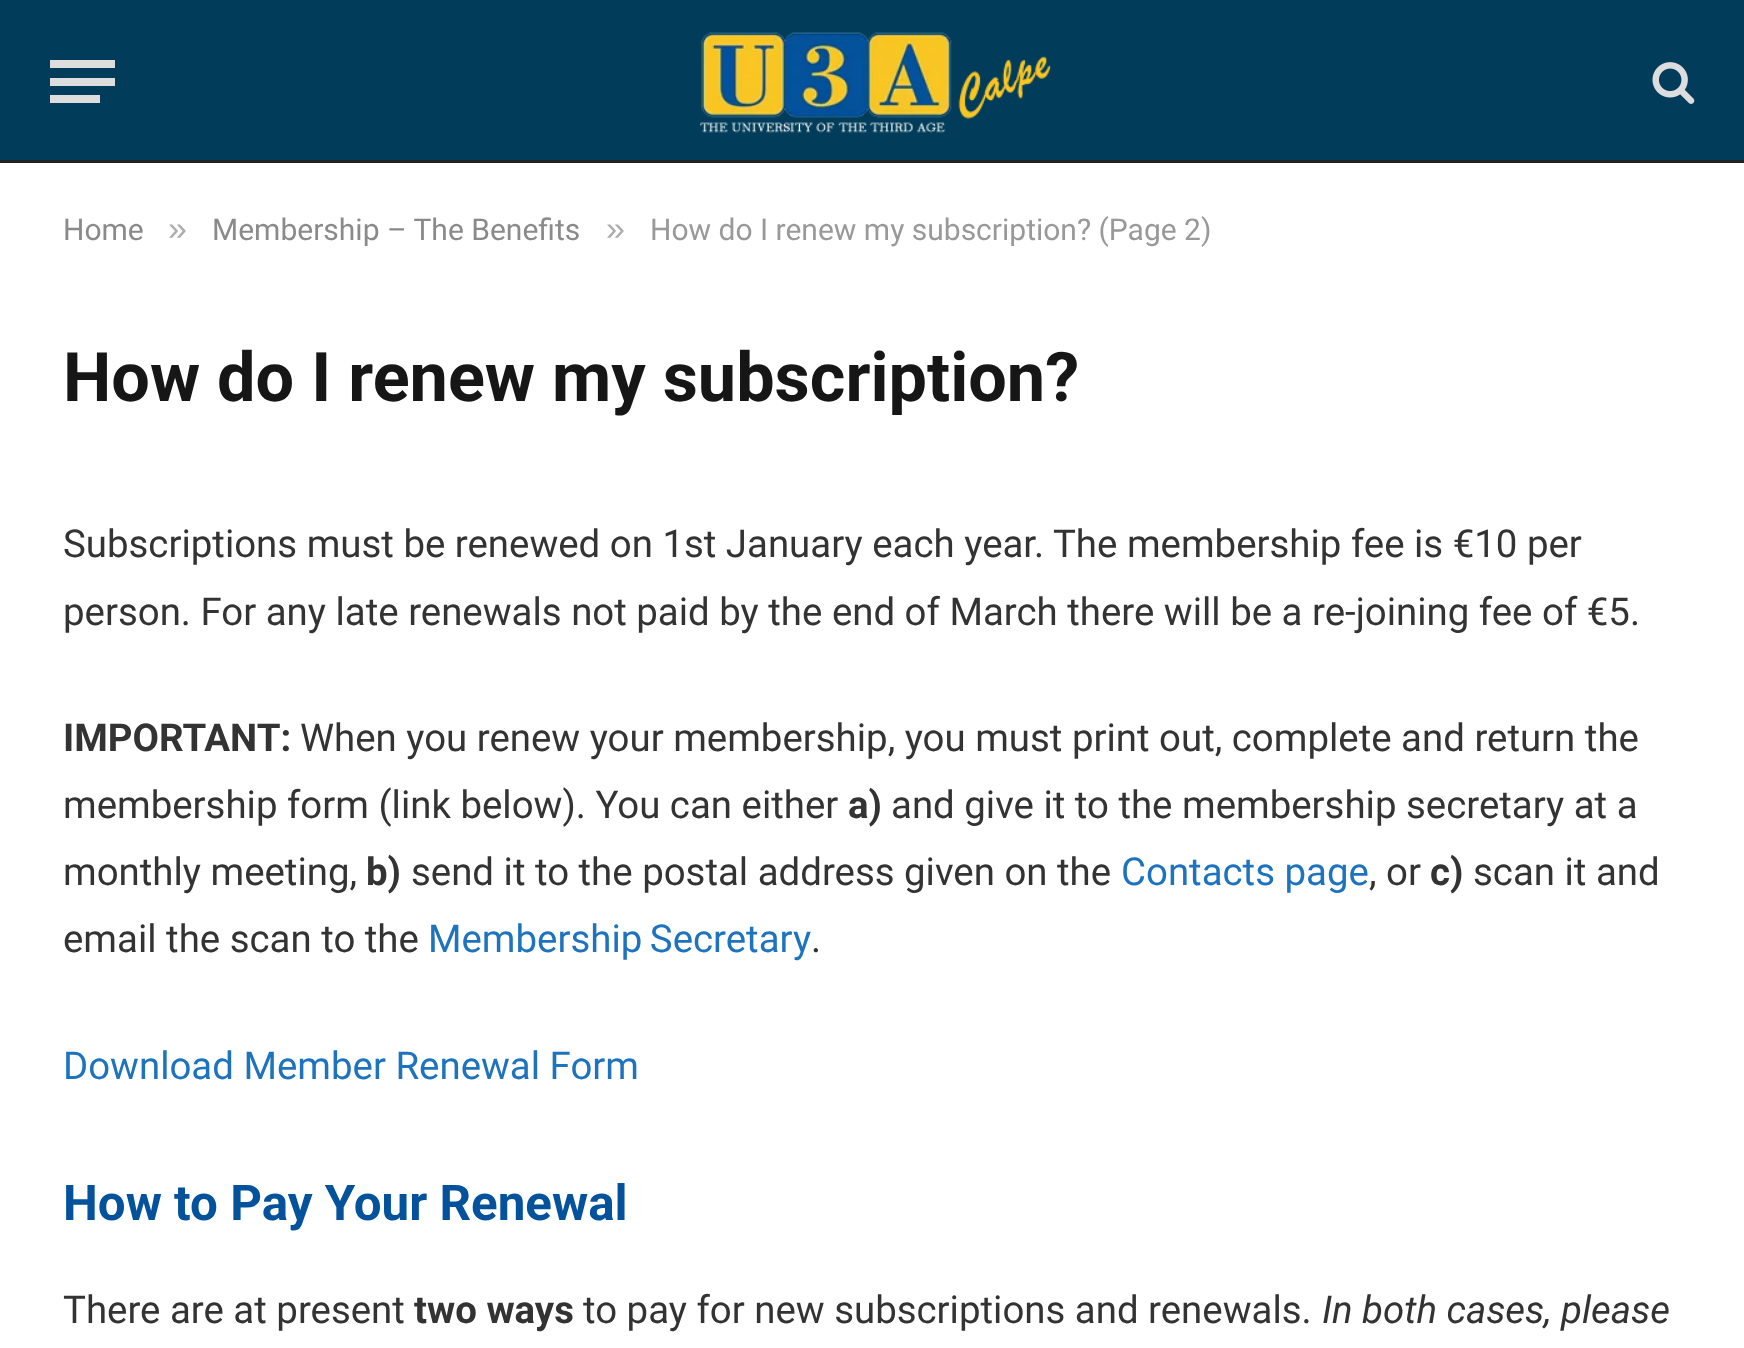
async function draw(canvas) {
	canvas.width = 1744;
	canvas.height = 1348;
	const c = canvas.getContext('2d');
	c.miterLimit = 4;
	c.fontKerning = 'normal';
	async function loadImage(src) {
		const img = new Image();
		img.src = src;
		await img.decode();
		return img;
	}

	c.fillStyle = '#fff';
	c.fillRect(0, 0, 1744, 1348);
	for (const [x, y, w, h, color] of [
		[0, 0, 1744, 160, '#013c5a'],
		[0, 160, 1744, 3, '#222'],
		[50, 95, 50, 8, '#ddd'],
		[50, 60, 65, 8, '#ddd'],
		[50, 78, 65, 8, '#ddd'],
	]) {
		c.fillStyle = color;
		c.fillRect(x, y, w, h);
	}
	c.drawImage(await loadImage('img1.png'), 699, 32, 352, 101);
	c.drawImage(await loadImage('img2.png'), 1652, 62, 43, 42);
	c.font = '30px Roboto';
	c.fillStyle = '#8a8a8a';
	c.fillText('Home', 63, 240);
	c.font = '34px Liberation Sans';
	c.fillStyle = '#adadad';
	c.fillText('»', 168, 240);
	c.font = '30px Roboto';
	c.fillStyle = '#8a8a8a';
	c.fillText('Membership – The Benefits', 212, 240);
	c.font = '34px Liberation Sans';
	c.fillStyle = '#adadad';
	c.fillText('»', 606, 240);
	c.font = '30px Roboto';
	c.fillStyle = '#999';
	c.fillText('How do I renew my subscription? (Page 2)', 650, 240);
	c.font = 'bold 68.4px Roboto';
	c.fillStyle = '#161616';
	c.fillText('How do I renew my subscription?', 63, 401);
	c.font = '38.4px Roboto';
	c.fillStyle = '#333';
	c.fillText('Subscriptions must be renewed on 1st January each year. The membership fee is €10 per', 63, 557);
	c.fillText('person. For any late renewals not paid by the end of March there will be a re-joining fee of €5.', 63, 625);
	c.font = 'bold 38.4px Roboto';
	c.fillText('IMPORTANT:', 63, 751);
	c.font = '38.4px Roboto';
	c.fillText('When you renew your membership, you must print out, complete and return the', 300, 751);
	c.fillText('membership form (link below). You can either', 63, 818);
	c.font = 'bold 38.4px Roboto';
	c.fillText('a)', 848, 818);
	c.font = '38.4px Roboto';
	c.fillText('and give it to the membership secretary at a', 891, 818);
	c.fillText('monthly meeting,', 63, 885);
	c.font = 'bold 38.4px Roboto';
	c.fillText('b)', 366, 885);
	c.font = '38.4px Roboto';
	c.fillText('send it to the postal address given on the', 411, 885);
	c.fillStyle = '#1e73be';
	c.fillText('Contacts page', 1121, 885);
	c.fillStyle = '#333';
	c.fillText(', or', 1369, 885);
	c.font = 'bold 38.4px Roboto';
	c.fillText('c)', 1430, 885);
	c.font = '38.4px Roboto';
	c.fillText('scan it and', 1473, 885);
	c.fillText('email the scan to the', 63, 952);
	c.wordSpacing = '-2px';
	c.fillStyle = '#1e73be';
	c.fillText('Membership Secretary', 428, 952);
	c.wordSpacing = '0px';
	c.fillStyle = '#333';
	c.fillText('.', 811, 952);
	c.fillStyle = '#1e73be';
	c.fillText('Download Member Renewal Form', 63, 1079);
	c.font = 'bold 49.3px Roboto';
	c.fillStyle = '#04529c';
	c.fillText('How to Pay Your Renewal', 63, 1220);
	c.font = '38.4px Roboto';
	c.fillStyle = '#333';
	c.fillText('There are at present', 63, 1323);
	c.font = 'bold 38.4px Roboto';
	c.fillText('two ways', 414, 1323);
	c.font = '38.4px Roboto';
	c.fillText('to pay for new subscriptions and renewals.', 583, 1323);
	c.font = 'italic 38.4px Roboto';
	c.fillText('In both cases, please', 1322, 1323);
}

draw(document.querySelector('canvas'));
